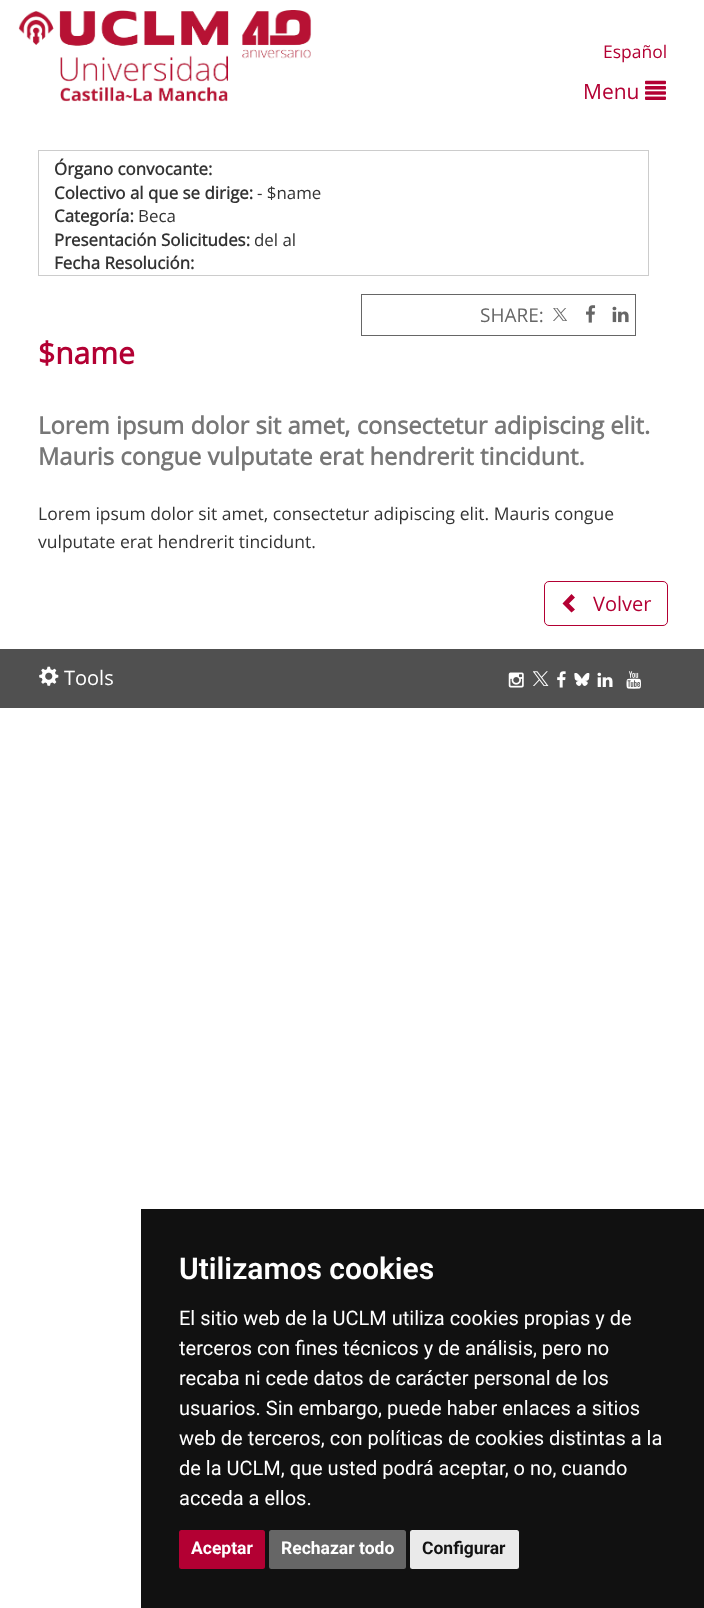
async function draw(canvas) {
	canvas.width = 704;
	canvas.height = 1608;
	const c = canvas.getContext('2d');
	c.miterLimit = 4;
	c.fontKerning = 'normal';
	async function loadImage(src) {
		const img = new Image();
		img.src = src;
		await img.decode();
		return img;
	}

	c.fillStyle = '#fff';
	c.fillRect(0, 0, 704, 1608);
	c.drawImage(await loadImage('img1.png'), 18, 10, 294, 92);
	c.font = '17.5px Open Sans';
	c.fillStyle = '#b30033';
	c.fillText('Español', 603, 58);
	c.font = '21px Open Sans';
	c.fillText('Menu', 583, 99);
	c.drawImage(await loadImage('img2.png'), 645, 80, 21, 20);
	c.strokeStyle = '#ccc';
	c.strokeRect(38.5, 150.5, 610, 125);
	c.font = 'bold 16.9px Open Sans';
	c.fillStyle = '#333';
	c.fillText('Órgano convocante:', 54, 175);
	c.fillText('Colectivo al que se dirige:', 54, 199);
	c.font = '16.9px Open Sans';
	c.fillText('- $name', 257, 199);
	c.font = 'bold 16.9px Open Sans';
	c.fillText('Categoría:', 54, 222);
	c.font = '16.9px Open Sans';
	c.fillText('Beca', 138, 222);
	c.font = 'bold 16.9px Open Sans';
	c.fillText('Presentación Solicitudes:', 54, 246);
	c.font = '16.9px Open Sans';
	c.fillText('del al', 254, 246);
	c.font = 'bold 16.9px Open Sans';
	c.fillText('Fecha Resolución:', 54, 269);
	c.strokeStyle = '#666';
	c.strokeRect(361.5, 294.5, 274, 41);
	c.font = '19px Open Sans';
	c.fillStyle = '#666';
	c.fillText('SHARE:', 480, 322);
	c.drawImage(await loadImage('img3.png'), 553, 308, 14, 13);
	c.drawImage(await loadImage('img4.png'), 586, 305, 10, 18);
	c.drawImage(await loadImage('img5.png'), 612, 306, 17, 17);
	c.font = 'bold 30px Open Sans';
	c.fillStyle = '#b30033';
	c.fillText('$name', 38, 364);
	c.font = 'bold 23.75px Open Sans';
	c.fillStyle = '#777';
	c.fillText('Lorem ipsum dolor sit amet, consectetur adipiscing elit.', 38, 434);
	c.fillText('Mauris congue vulputate erat hendrerit tincidunt.', 38, 465);
	c.font = '17.5px Open Sans';
	c.fillStyle = '#333';
	c.fillText('Lorem ipsum dolor sit amet, consectetur adipiscing elit. Mauris congue', 38, 520);
	c.fillText('vulputate erat hendrerit tincidunt.', 38, 548);
	c.beginPath();
	c.roundRect(544.5, 581.5, 123, 44, 4.5);
	c.strokeStyle = '#b30033';
	c.stroke();
	c.fillStyle = '#b30033';
	c.beginPath();
	c.moveTo(575, 597.5);
	c.lineTo(569, 603.5);
	c.lineTo(575, 609.5);
	c.lineTo(571.5, 612.5);
	c.lineTo(562.5, 603.5);
	c.lineTo(571.5, 594);
	c.closePath();
	c.fill();
	c.font = '20px Open Sans';
	c.fillText('Volver', 593, 611);
	c.fillStyle = '#505050';
	c.fillRect(0, 649, 704, 59);
	c.drawImage(await loadImage('img6.png'), 39, 666, 20, 20);
	c.fillStyle = '#fff';
	c.fillText('Tools', 64, 685);
	c.drawImage(await loadImage('img7.png'), 508, 672, 16, 16);
	c.drawImage(await loadImage('img8.png'), 533, 671, 16, 15);
	c.drawImage(await loadImage('img9.png'), 557, 671, 9, 17);
	c.drawImage(await loadImage('img10.png'), 574, 673, 16, 13);
	c.drawImage(await loadImage('img11.png'), 597, 672, 16, 15);
	c.drawImage(await loadImage('img12.png'), 626, 671, 15, 18);
	c.fillStyle = '#111';
	c.fillRect(141, 1209, 563, 399);
	c.font = '600 30px Roboto';
	c.fillStyle = '#fff';
	c.fillText('Utilizamos cookies', 179, 1279);
	c.font = '20px Roboto';
	for (const [text, x, y] of [
		['El sitio web de la UCLM utiliza cookies propias y de', 179, 1325],
		['terceros con fines técnicos y de análisis, pero no', 179, 1355],
		['recaba ni cede datos de carácter personal de los', 179, 1385],
		['usuarios. Sin embargo, puede haber enlaces a sitios', 179, 1415],
		['web de terceros, con políticas de cookies distintas a la', 179, 1445],
		['de la UCLM, que usted podrá aceptar, o no, cuando', 179, 1475],
		['acceda a ellos.', 179, 1505],
	]) {
		c.fillText(text, x, y);
	}
	c.fillStyle = '#b30033';
	c.beginPath();
	c.roundRect(179, 1530, 86, 39, 2.5);
	c.fill();
	c.font = 'bold 17.5px Roboto';
	c.fillStyle = '#fff';
	c.fillText('Aceptar', 191, 1554);
	c.fillStyle = '#666';
	c.beginPath();
	c.roundRect(269, 1530, 137, 39, 2.5);
	c.fill();
	c.fillStyle = '#fff';
	c.fillText('Rechazar todo', 281, 1554);
	c.fillStyle = '#eaeaea';
	c.beginPath();
	c.roundRect(410, 1530, 109, 39, 2.5);
	c.fill();
	c.fillStyle = '#111';
	c.fillText('Configurar', 422, 1554);
}

draw(document.querySelector('canvas'));
